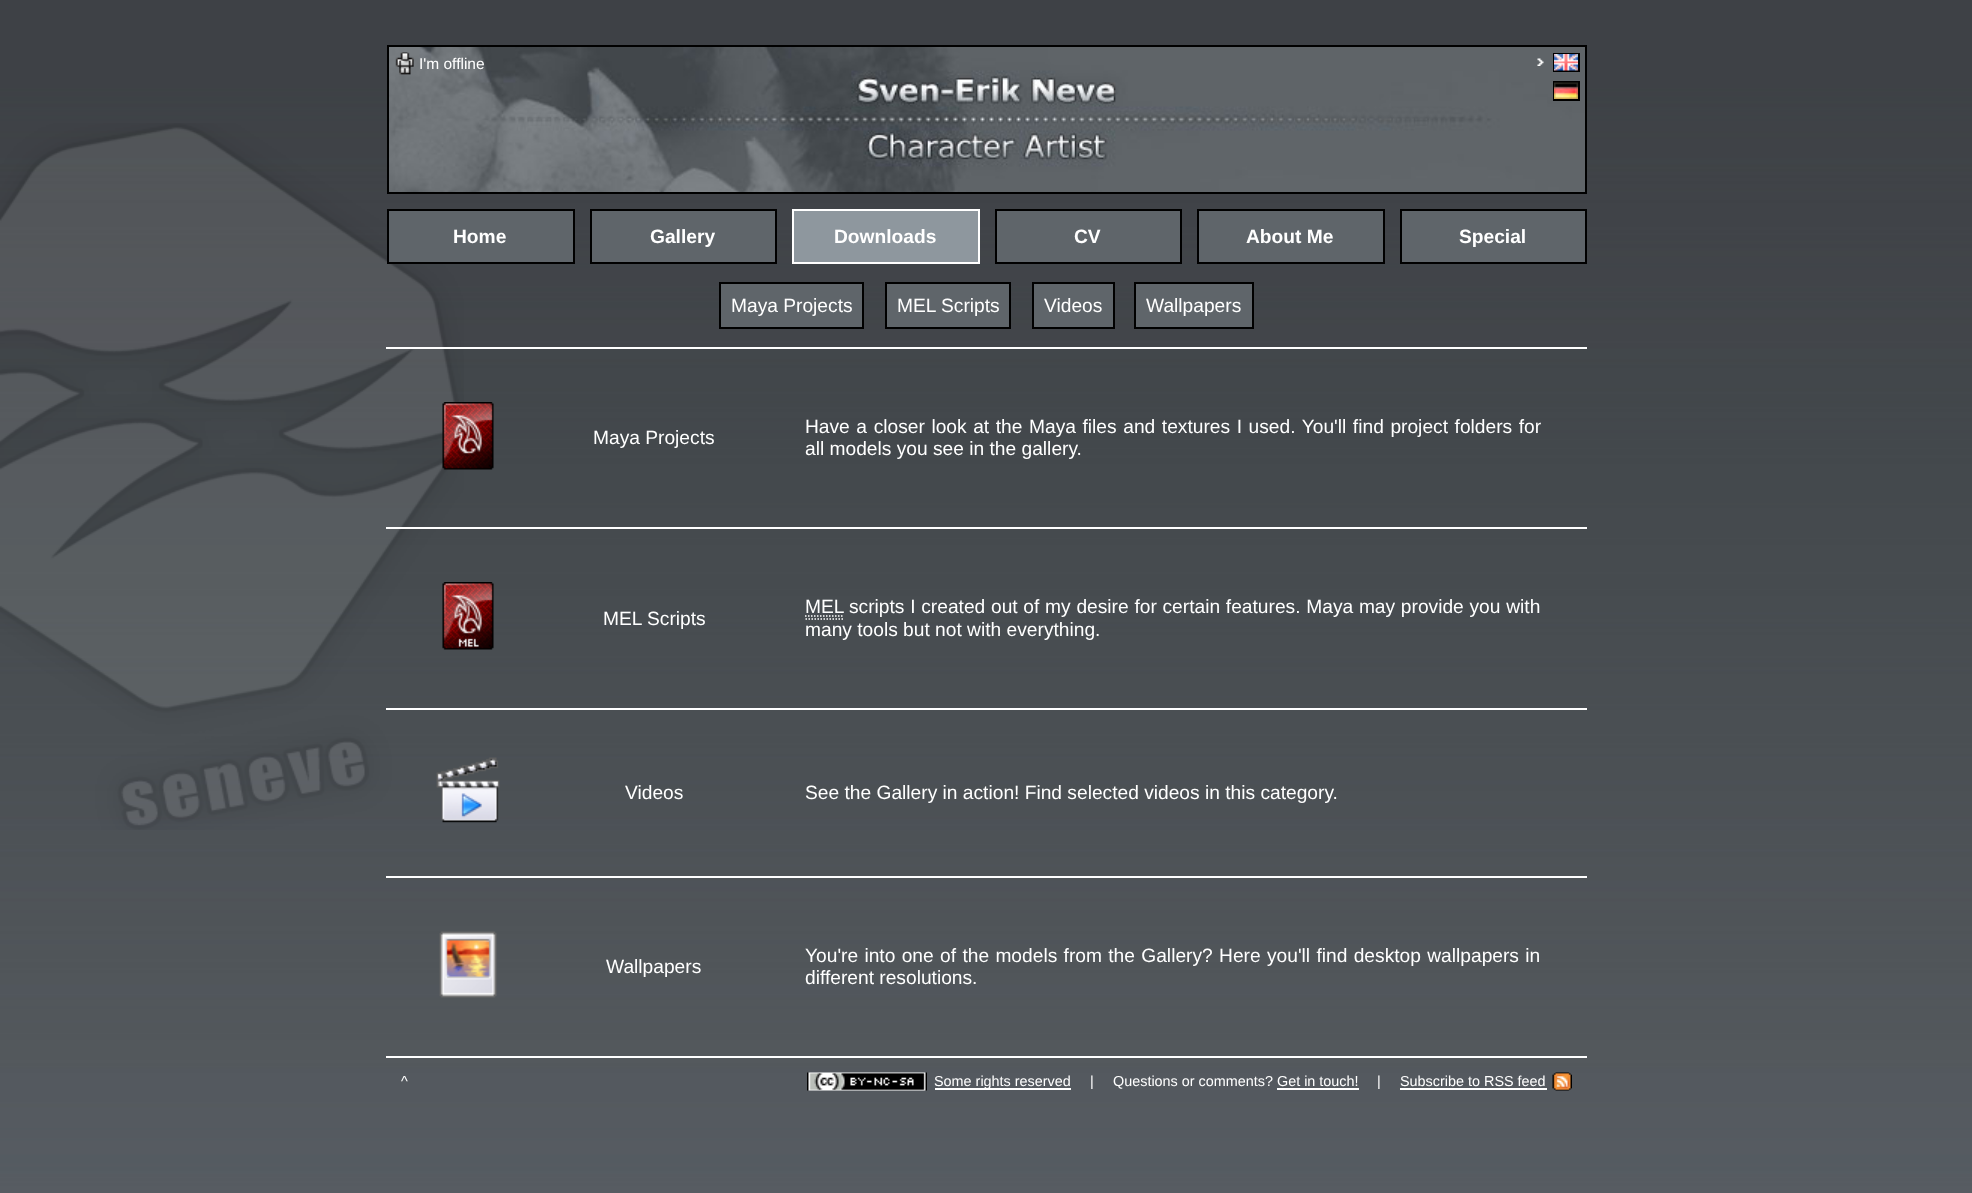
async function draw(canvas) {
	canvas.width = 1972;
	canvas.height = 1193;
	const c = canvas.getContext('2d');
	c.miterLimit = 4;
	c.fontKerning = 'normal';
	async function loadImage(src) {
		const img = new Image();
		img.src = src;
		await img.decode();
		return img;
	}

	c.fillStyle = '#fff';
	c.fillRect(0, 0, 1972, 1193);
	c.drawImage(await loadImage('img1.png'), 0, 0, 1972, 1193);
	c.drawImage(await loadImage('img2.png'), 0, 123, 464, 707);
	c.drawImage(await loadImage('img3.png'), 389, 47, 1196, 145);
	c.strokeStyle = '#000';
	c.lineWidth = 2;
	c.strokeRect(388, 46, 1198, 147);
	c.drawImage(await loadImage('img4.png'), 395, 52, 19, 23);
	c.font = '15.5px Liberation Sans';
	c.fillText('I\'m offline', 419, 69);
	c.strokeRect(1554, 54, 25, 17);
	c.drawImage(await loadImage('img5.png'), 1537, 58, 7, 8);
	c.drawImage(await loadImage('img6.png'), 1554, 54, 24, 17);
	c.strokeRect(1554, 82, 25, 18);
	c.drawImage(await loadImage('img7.png'), 1554, 82, 24, 17);
	c.fillStyle = '#5f656a';
	c.beginPath();
	c.rect(388, 210, 186, 53);
	c.fill();
	c.stroke();
	c.font = 'bold 19.2px Liberation Sans';
	c.fillStyle = '#fff';
	c.fillText('Home', 453, 243);
	c.fillStyle = '#5f656a';
	c.beginPath();
	c.rect(591, 210, 185, 53);
	c.fill();
	c.stroke();
	c.fillStyle = '#fff';
	c.fillText('Gallery', 650, 243);
	c.fillStyle = '#8e979e';
	c.beginPath();
	c.rect(793, 210, 186, 53);
	c.fill();
	c.strokeStyle = '#fff';
	c.stroke();
	c.fillStyle = '#fff';
	c.fillText('Downloads', 834, 243);
	c.fillStyle = '#5f656a';
	c.beginPath();
	c.rect(996, 210, 185, 53);
	c.fill();
	c.strokeStyle = '#000';
	c.stroke();
	c.fillStyle = '#fff';
	c.fillText('CV', 1074, 243);
	c.fillStyle = '#5f656a';
	c.beginPath();
	c.rect(1198, 210, 186, 53);
	c.fill();
	c.stroke();
	c.fillStyle = '#fff';
	c.fillText('About Me', 1246, 243);
	c.fillStyle = '#5f656a';
	c.beginPath();
	c.rect(1401, 210, 185, 53);
	c.fill();
	c.stroke();
	c.fillStyle = '#fff';
	c.fillText('Special', 1459, 243);
	c.fillStyle = '#5f656a';
	c.beginPath();
	c.rect(720, 283, 143, 45);
	c.fill();
	c.stroke();
	c.font = '19.2px Liberation Sans';
	c.fillStyle = '#fff';
	c.fillText('Maya Projects', 731, 312);
	c.fillStyle = '#5f656a';
	c.beginPath();
	c.rect(886, 283, 124, 45);
	c.fill();
	c.stroke();
	c.fillStyle = '#fff';
	c.fillText('MEL Scripts', 897, 312);
	c.fillStyle = '#5f656a';
	c.beginPath();
	c.rect(1033, 283, 81, 45);
	c.fill();
	c.stroke();
	c.fillStyle = '#fff';
	c.fillText('Videos', 1044, 312);
	c.fillStyle = '#5f656a';
	c.beginPath();
	c.rect(1135, 283, 118, 45);
	c.fill();
	c.stroke();
	c.fillStyle = '#fff';
	c.fillText('Wallpapers', 1146, 312);
	c.drawImage(await loadImage('img8.png'), 442, 402, 52, 68);
	c.fillText('Maya Projects', 593, 444);
	c.fillRect(386, 347, 1201, 2);
	c.fillRect(386, 527, 1201, 2);
	c.wordSpacing = '1.25px';
	c.fillText('Have a closer look at the Maya files and textures I used. You\'ll find project folders for', 805, 433);
	c.wordSpacing = '0px';
	c.fillText('all models you see in the gallery.', 805, 455);
	c.drawImage(await loadImage('img9.png'), 442, 582, 52, 68);
	c.fillText('MEL Scripts', 603, 625);
	c.fillRect(386, 708, 1201, 2);
	c.fillText('MEL', 805, 613);
	c.beginPath();
	c.moveTo(805.5, 619);
	c.lineTo(843, 619);
	c.moveTo(805, 616);
	c.lineTo(843.5, 616);
	c.strokeStyle = '#fff';
	c.lineWidth = 1.5;
	c.setLineDash([1.5, 1.5]);
	c.stroke();
	c.wordSpacing = '0.4px';
	c.fillText('scripts I created out of my desire for certain features. Maya may provide you with', 849, 613);
	c.wordSpacing = '0px';
	c.fillText('many tools but not with everything.', 805, 636);
	c.drawImage(await loadImage('img10.png'), 436, 757, 64, 66);
	c.fillText('Videos', 625, 799);
	c.fillRect(386, 876, 1201, 2);
	c.fillText('See the Gallery in action! Find selected videos in this category.', 805, 799);
	c.drawImage(await loadImage('img11.png'), 439, 931, 58, 67);
	c.fillText('Wallpapers', 606, 973);
	c.fillRect(386, 1056, 1201, 2);
	c.wordSpacing = '1px';
	c.fillText('You\'re into one of the models from the Gallery? Here you\'ll find desktop wallpapers in', 805, 962);
	c.wordSpacing = '0px';
	c.fillText('different resolutions.', 805, 984);
	c.font = '14.4px Liberation Sans';
	c.fillText('^', 401, 1086);
	c.drawImage(await loadImage('img12.png'), 807, 1072, 120, 19);
	c.fillRect(935, 1088, 136, 2);
	for (const [text, x, y] of [
		['Some rights reserved', 934, 1086],
		['|', 1090, 1086],
		['Questions or comments? Get in touch!', 1113, 1086],
		['|', 1377, 1086],
		['Subscribe to RSS feed', 1400, 1086],
	]) {
		c.fillText(text, x, y);
	}
	c.fillRect(1400, 1088, 147, 2);
	c.drawImage(await loadImage('img13.png'), 1552, 1072, 20, 19);
	c.fillRect(1277, 1088, 82, 2);
}

draw(document.querySelector('canvas'));
